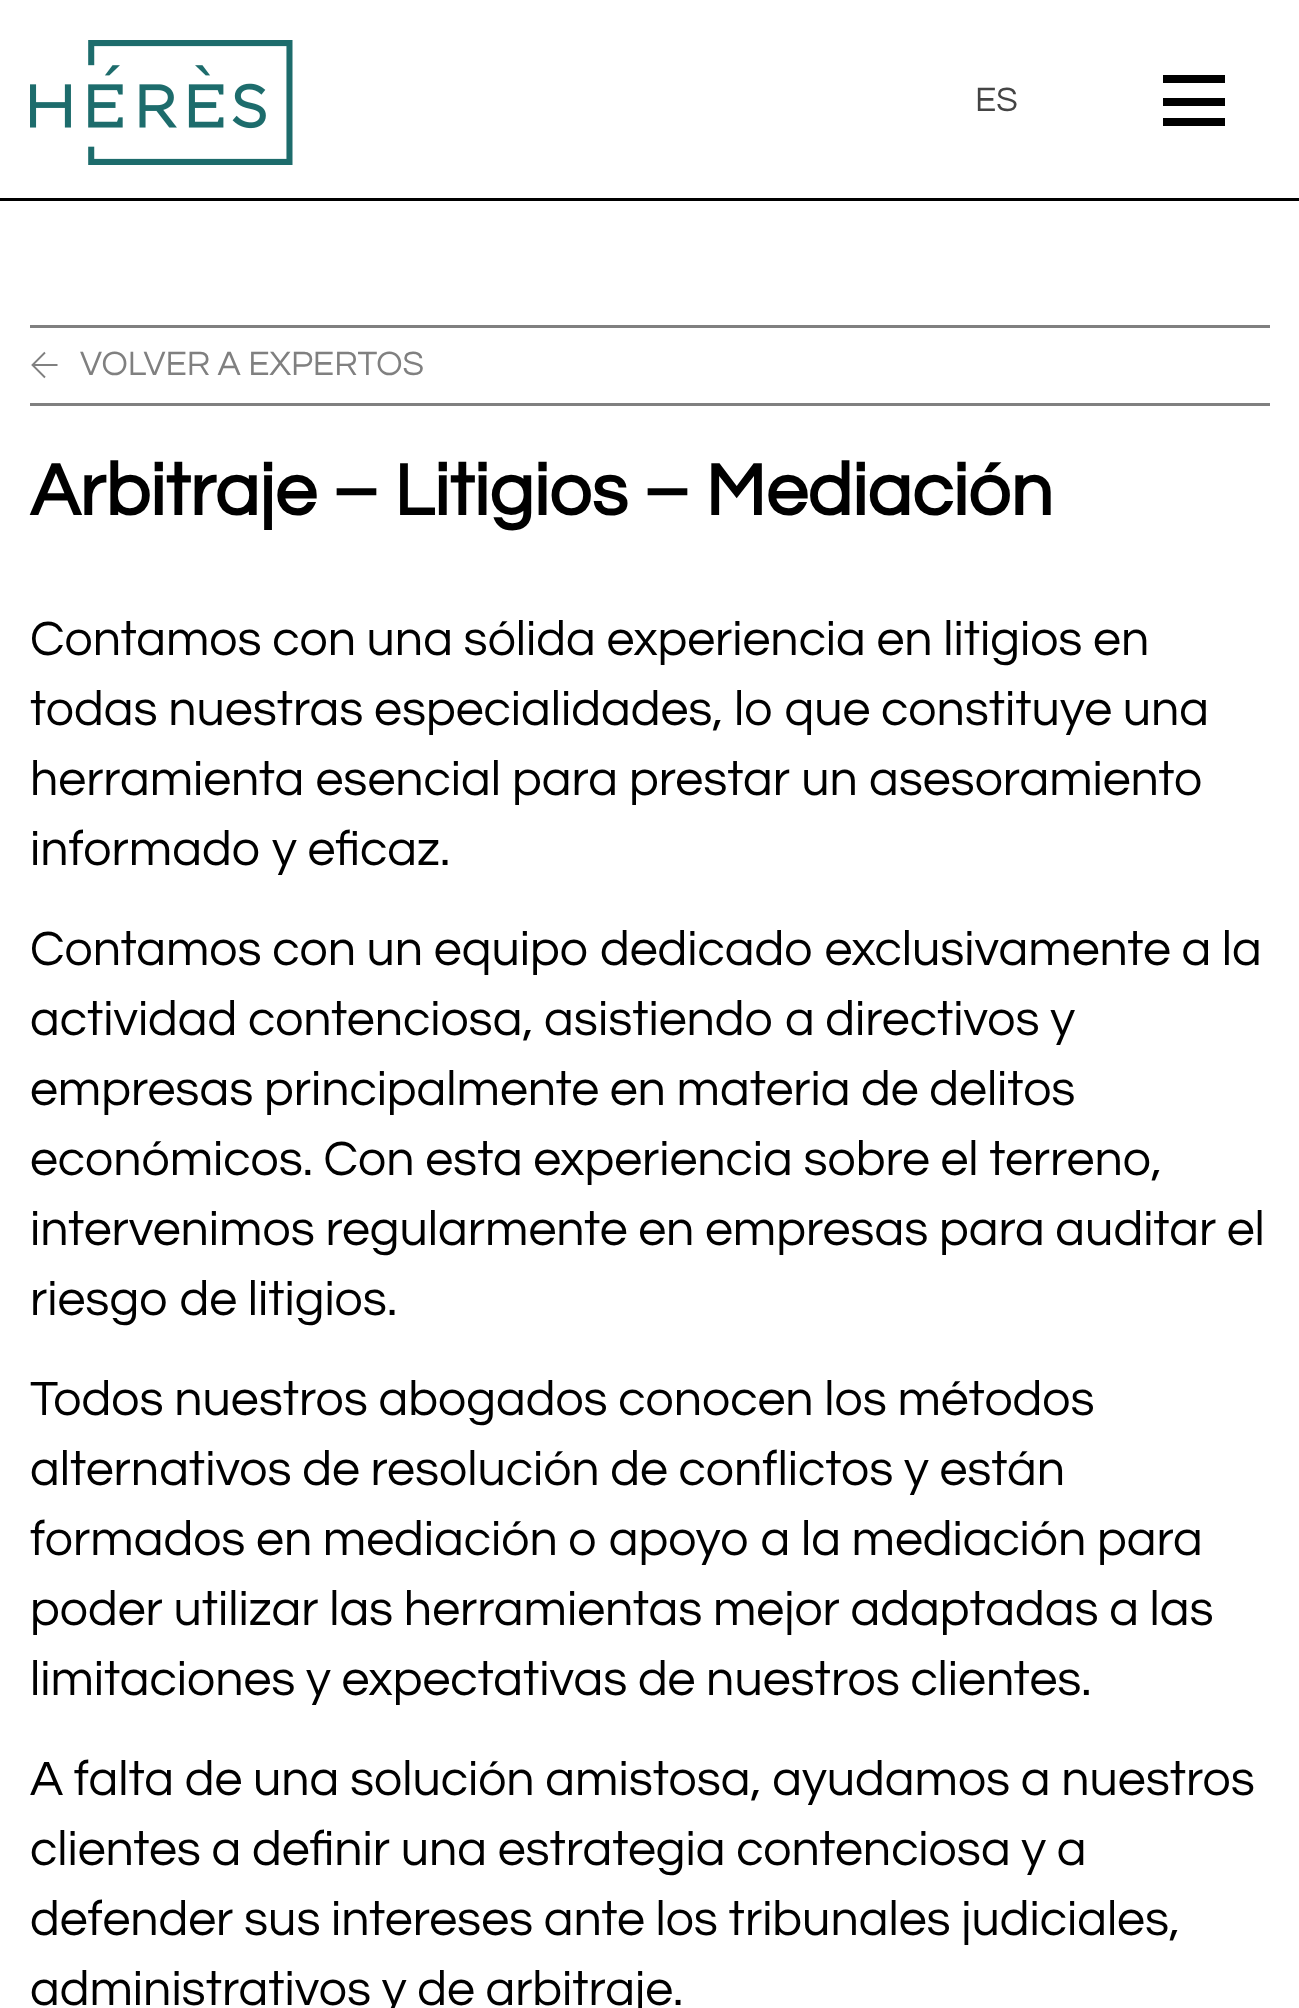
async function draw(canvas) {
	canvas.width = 1299;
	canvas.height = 2008;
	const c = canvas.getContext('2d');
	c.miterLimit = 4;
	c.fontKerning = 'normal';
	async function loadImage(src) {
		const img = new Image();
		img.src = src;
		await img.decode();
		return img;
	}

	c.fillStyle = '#fff';
	c.fillRect(0, 0, 1299, 2008);
	c.fillStyle = '#000';
	c.fillRect(0, 198, 1299, 3);
	c.drawImage(await loadImage('img1.png'), 30, 40, 263, 125);
	c.font = '35px Questrial';
	c.fillStyle = '#444';
	c.fillText('ES', 975, 111);
	for (const [x, y, w, h, color] of [
		[1163, 98, 62, 8, '#000'],
		[1163, 75, 62, 8, '#000'],
		[1163, 118, 62, 8, '#000'],
		[30, 325, 1240, 3, '#808080'],
		[30, 403, 1240, 3, '#808080'],
	]) {
		c.fillStyle = color;
		c.fillRect(x, y, w, h);
	}
	c.beginPath();
	c.moveTo(45, 352.5);
	c.lineTo(32.5, 365);
	c.lineTo(45, 377.5);
	c.moveTo(32.5, 365);
	c.lineTo(57.5, 365);
	c.strokeStyle = '#808080';
	c.lineWidth = 1.9;
	c.stroke();
	c.fillText('VOLVER A EXPERTOS', 80, 375);
	c.font = 'bold 75px Questrial';
	c.fillStyle = '#000';
	c.fillText('Arbitraje – Litigios – Mediación', 30, 515);
	c.font = '50px Questrial';
	c.fillText('Contamos con una sólida experiencia en litigios en', 30, 655);
	c.fillText('todas nuestras especialidades, lo que constituye una', 30, 725);
	c.wordSpacing = '0.5px';
	c.fillText('herramienta esencial para prestar un asesoramiento', 30, 795);
	c.wordSpacing = '0px';
	for (const [text, x, y] of [
		['informado y eficaz.', 30, 865],
		['Contamos con un equipo dedicado exclusivamente a la', 30, 965],
		['actividad contenciosa, asistiendo a directivos y', 30, 1035],
		['empresas principalmente en materia de delitos', 30, 1105],
		['económicos. Con esta experiencia sobre el terreno,', 30, 1175],
		['intervenimos regularmente en empresas para auditar el', 30, 1245],
		['riesgo de litigios.', 30, 1315],
		['Todos nuestros abogados conocen los métodos', 30, 1415],
		['alternativos de resolución de conflictos y están', 30, 1485],
		['formados en mediación o apoyo a la mediación para', 30, 1555],
		['poder utilizar las herramientas mejor adaptadas a las', 30, 1625],
		['limitaciones y expectativas de nuestros clientes.', 30, 1695],
		['A falta de una solución amistosa, ayudamos a nuestros', 30, 1795],
		['clientes a definir una estrategia contenciosa y a', 30, 1865],
		['defender sus intereses ante los tribunales judiciales,', 30, 1935],
		['administrativos y de arbitraje.', 30, 2005],
	]) {
		c.fillText(text, x, y);
	}
}

draw(document.querySelector('canvas'));
